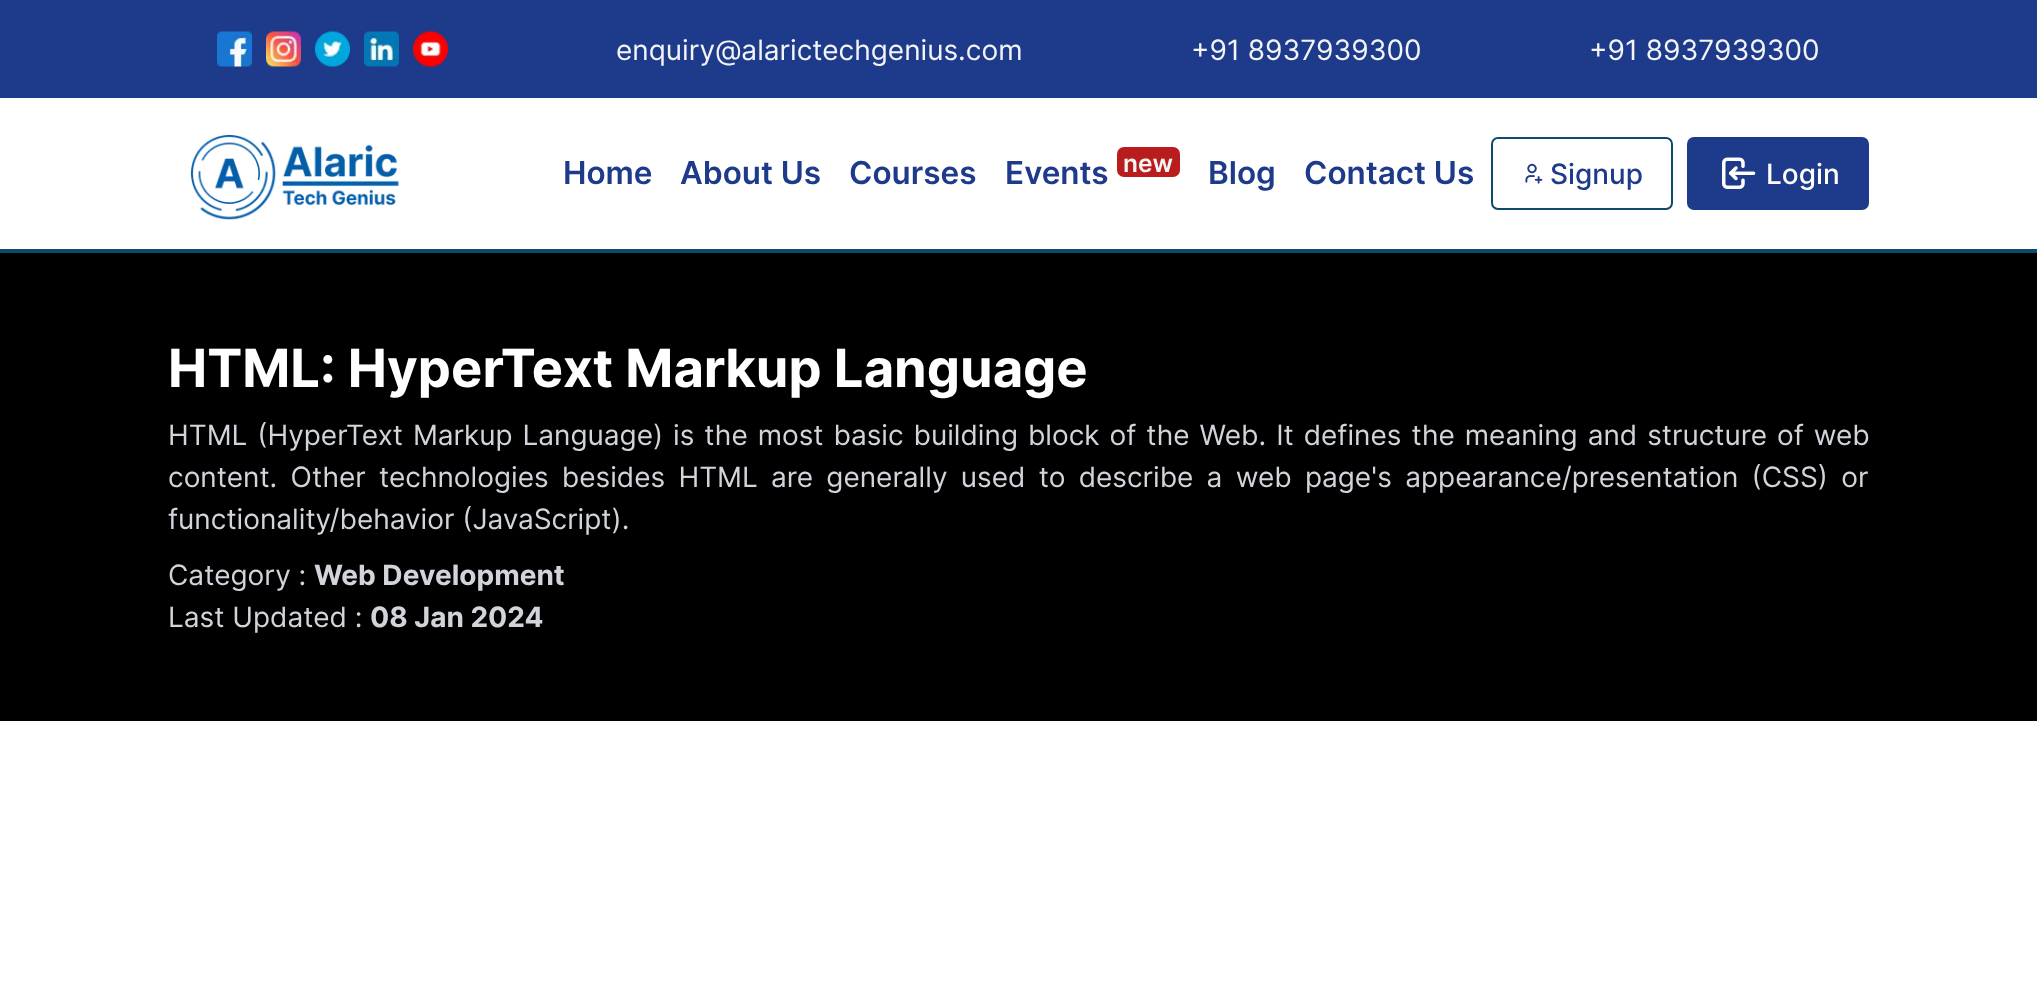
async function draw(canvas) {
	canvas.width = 2037;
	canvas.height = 996;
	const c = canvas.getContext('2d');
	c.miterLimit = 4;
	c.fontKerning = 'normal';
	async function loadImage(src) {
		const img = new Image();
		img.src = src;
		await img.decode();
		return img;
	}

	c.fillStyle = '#fff';
	c.fillRect(0, 0, 2037, 996);
	c.fillStyle = '#1e3a8a';
	c.fillRect(0, 0, 2037, 98);
	c.drawImage(await loadImage('img1.png'), 217, 31, 35, 36);
	c.drawImage(await loadImage('img2.png'), 266, 31, 35, 36);
	c.drawImage(await loadImage('img3.png'), 315, 31, 35, 36);
	c.drawImage(await loadImage('img4.png'), 364, 31, 35, 36);
	c.drawImage(await loadImage('img5.png'), 413, 31, 35, 36);
	c.font = '28px Inter';
	c.fillStyle = '#f3f4f6';
	for (const [text, x, y] of [
		['enquiry@alarictechgenius.com', 616, 60],
		['+91 8937939300', 1191, 60],
		['+91 8937939300', 1589, 60],
	]) {
		c.fillText(text, x, y);
	}
	c.fillStyle = '#0c4a6e';
	c.fillRect(0, 249, 2037, 4);
	c.drawImage(await loadImage('img6.png'), 190, 134, 209, 86);
	c.font = '600 31.5px Inter';
	c.fillStyle = '#1e3a8a';
	for (const [text, x, y] of [
		['Home', 563, 184],
		['About Us', 680, 184],
		['Courses', 849, 184],
		['Events', 1005, 184],
	]) {
		c.fillText(text, x, y);
	}
	c.fillStyle = '#b91c1c';
	c.beginPath();
	c.roundRect(1117, 147, 63, 30, 7);
	c.fill();
	c.font = '600 24.5px Inter';
	c.fillStyle = '#f3f4f6';
	c.fillText('new', 1123, 172);
	c.font = '600 31.5px Inter';
	c.fillStyle = '#1e3a8a';
	c.fillText('Blog', 1208, 184);
	c.fillText('Contact Us', 1304, 184);
	c.beginPath();
	c.roundRect(1492, 138, 180, 71, 6);
	c.strokeStyle = '#0c4a6e';
	c.lineWidth = 2;
	c.stroke();
	c.drawImage(await loadImage('img7.png'), 1525, 163, 18, 21);
	c.font = '500 28px Inter';
	c.fillText('Signup', 1550, 184);
	c.beginPath();
	c.roundRect(1687, 137, 182, 73, 7);
	c.fill();
	c.drawImage(await loadImage('img8.png'), 1722, 157, 34, 32);
	c.fillStyle = '#fff';
	c.fillText('Login', 1766, 184);
	c.fillStyle = '#000';
	c.fillRect(0, 253, 2037, 468);
	c.font = 'bold 52.5px Inter';
	c.fillStyle = '#fff';
	c.fillText('HTML: HyperText Markup Language', 168, 387);
	c.wordSpacing = '2.1px';
	c.font = '28px Inter';
	c.fillStyle = '#d1d5db';
	c.fillText('HTML (HyperText Markup Language) is the most basic building block of the Web. It defines the meaning and structure of web', 168, 445);
	c.wordSpacing = '5.4px';
	c.fillText('content. Other technologies besides HTML are generally used to describe a web page\'s appearance/presentation (CSS) or', 168, 487);
	c.wordSpacing = '0px';
	c.fillText('functionality/behavior (JavaScript).', 168, 529);
	c.fillText('Category :', 168, 585);
	c.font = 'bold 28px Inter';
	c.fillText('Web Development', 314, 585);
	c.font = '28px Inter';
	c.fillText('Last Updated :', 168, 627);
	c.font = 'bold 28px Inter';
	c.fillText('08 Jan 2024', 370, 627);
}

draw(document.querySelector('canvas'));
